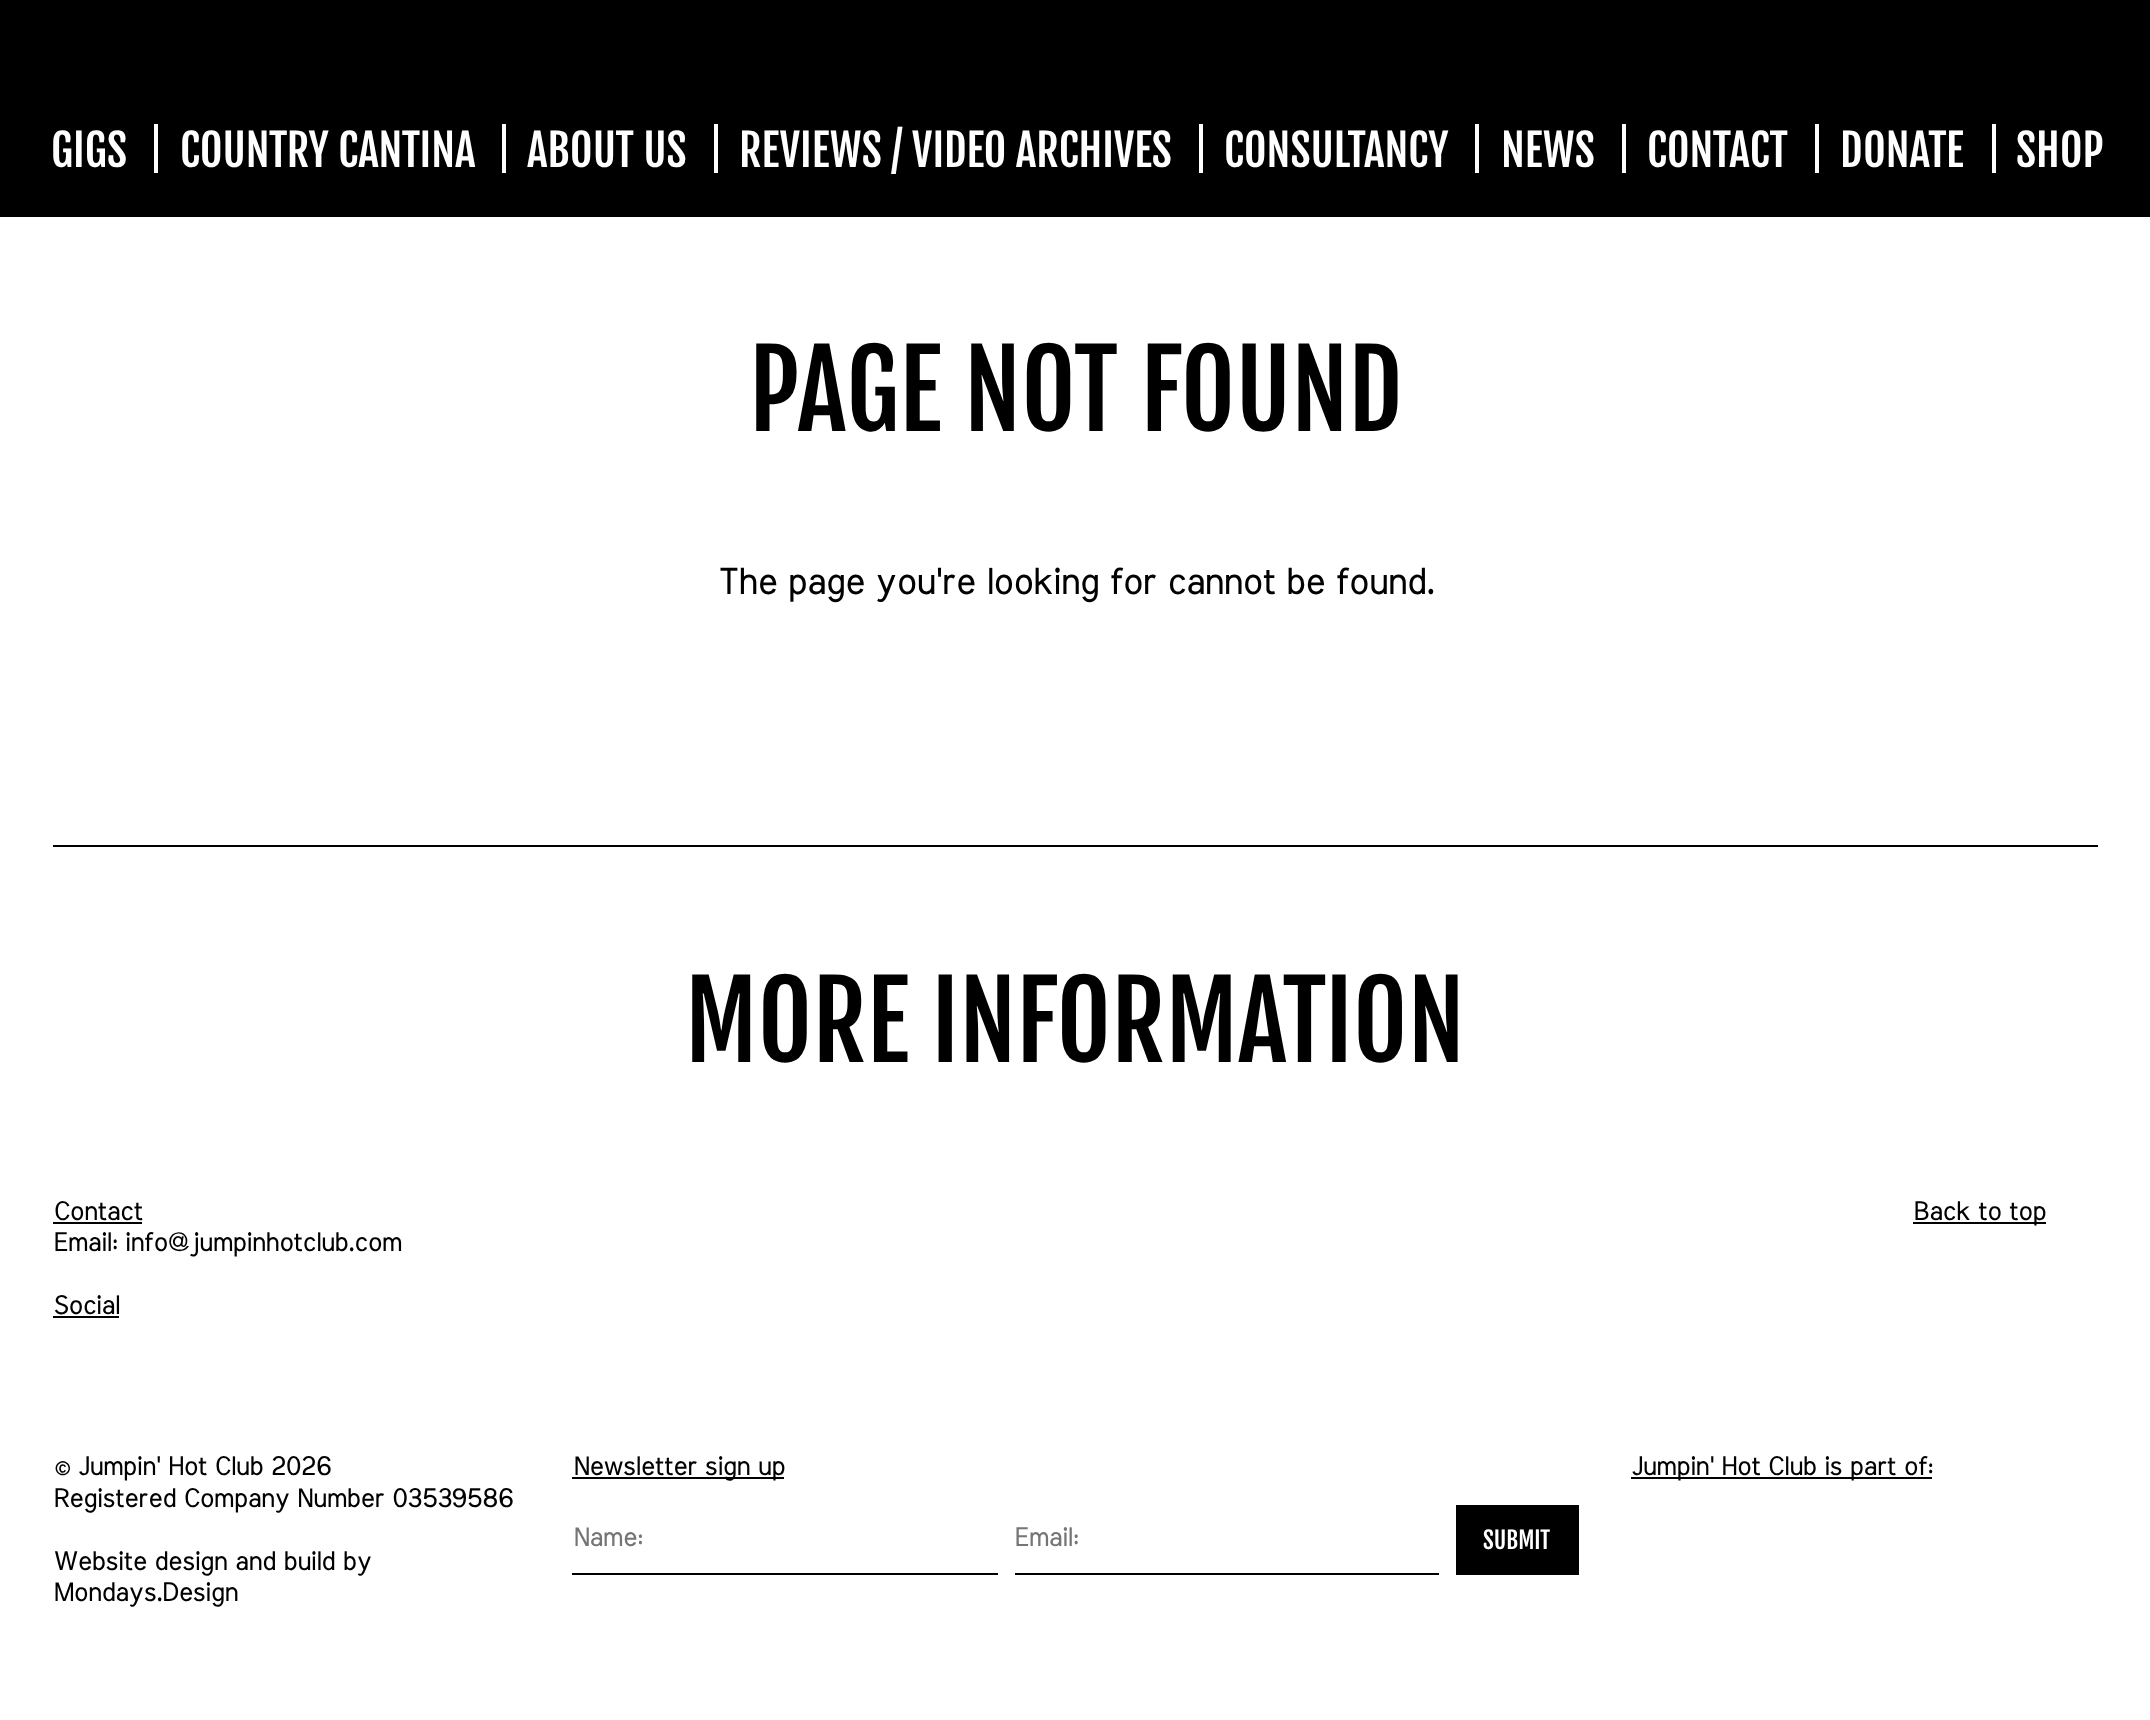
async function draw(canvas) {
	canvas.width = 2150;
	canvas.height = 1720;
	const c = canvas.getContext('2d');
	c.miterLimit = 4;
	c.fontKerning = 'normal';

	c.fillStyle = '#fff';
	c.fillRect(0, 0, 2150, 1720);
	c.fillStyle = '#000';
	c.fillRect(0, 0, 2150, 217);
	c.font = '43.75px Fjalla One';
	c.fillStyle = '#fff';
	c.fillText('GIGS', 51, 167);
	c.fillRect(154, 124, 4, 49);
	c.fillText('COUNTRY CANTINA', 180, 167);
	c.fillRect(502, 124, 4, 49);
	c.fillText('ABOUT US', 527, 167);
	c.fillRect(714, 124, 4, 49);
	c.fillText('REVIEWS / VIDEO ARCHIVES', 739, 167);
	c.fillRect(1199, 124, 4, 49);
	c.fillText('CONSULTANCY', 1224, 167);
	c.fillRect(1475, 124, 4, 49);
	c.fillText('NEWS', 1501, 167);
	c.fillRect(1622, 124, 4, 49);
	c.fillText('CONTACT', 1647, 167);
	c.fillRect(1815, 124, 4, 49);
	c.fillText('DONATE', 1840, 167);
	c.fillRect(1992, 124, 4, 49);
	c.fillText('SHOP', 2016, 167);
	c.font = '105px Fjalla One';
	c.fillStyle = '#000';
	c.fillText('PAGE NOT FOUND', 749, 431);
	c.font = '36.75px Meera Inimai';
	c.fillText('The page you\'re looking for cannot be found.', 717, 594);
	c.fillRect(53, 845, 2045, 2);
	c.font = '105px Fjalla One';
	c.fillText('MORE INFORMATION', 685, 1062);
	c.font = '26.25px Meera Inimai';
	c.fillText('Contact', 53, 1220);
	c.fillRect(53, 1222, 89, 2);
	c.fillText('Email: info@jumpinhotclub.com', 53, 1251);
	c.fillText('Social', 53, 1314);
	c.fillRect(53, 1316, 66, 2);
	c.fillRect(1913, 1222, 133, 2);
	for (const [text, x, y] of [
		['Back to top', 1913, 1220],
		['© Jumpin\' Hot Club 2026', 53, 1475],
		['Registered Company Number 03539586', 53, 1507],
		['Website design and build by', 53, 1570],
		['Mondays.Design', 53, 1601],
	]) {
		c.fillText(text, x, y);
	}
	c.fillRect(572, 1477, 212, 2);
	c.fillText('Newsletter sign up', 573, 1475);
	c.fillRect(572, 1573, 426, 2);
	c.fillStyle = '#757575';
	c.fillText('Name:', 573, 1546);
	c.fillStyle = '#000';
	c.fillRect(1015, 1573, 424, 2);
	c.fillStyle = '#757575';
	c.fillText('Email:', 1014, 1546);
	c.fillStyle = '#000';
	c.fillRect(1456, 1505, 123, 70);
	c.font = '23.5px Fjalla One';
	c.fillStyle = '#fff';
	c.fillText('SUBMIT', 1483, 1549);
	c.fillStyle = '#000';
	c.fillRect(1631, 1477, 301, 2);
	c.font = '26.25px Meera Inimai';
	c.fillText('Jumpin\' Hot Club is part of:', 1631, 1475);
}

draw(document.querySelector('canvas'));
